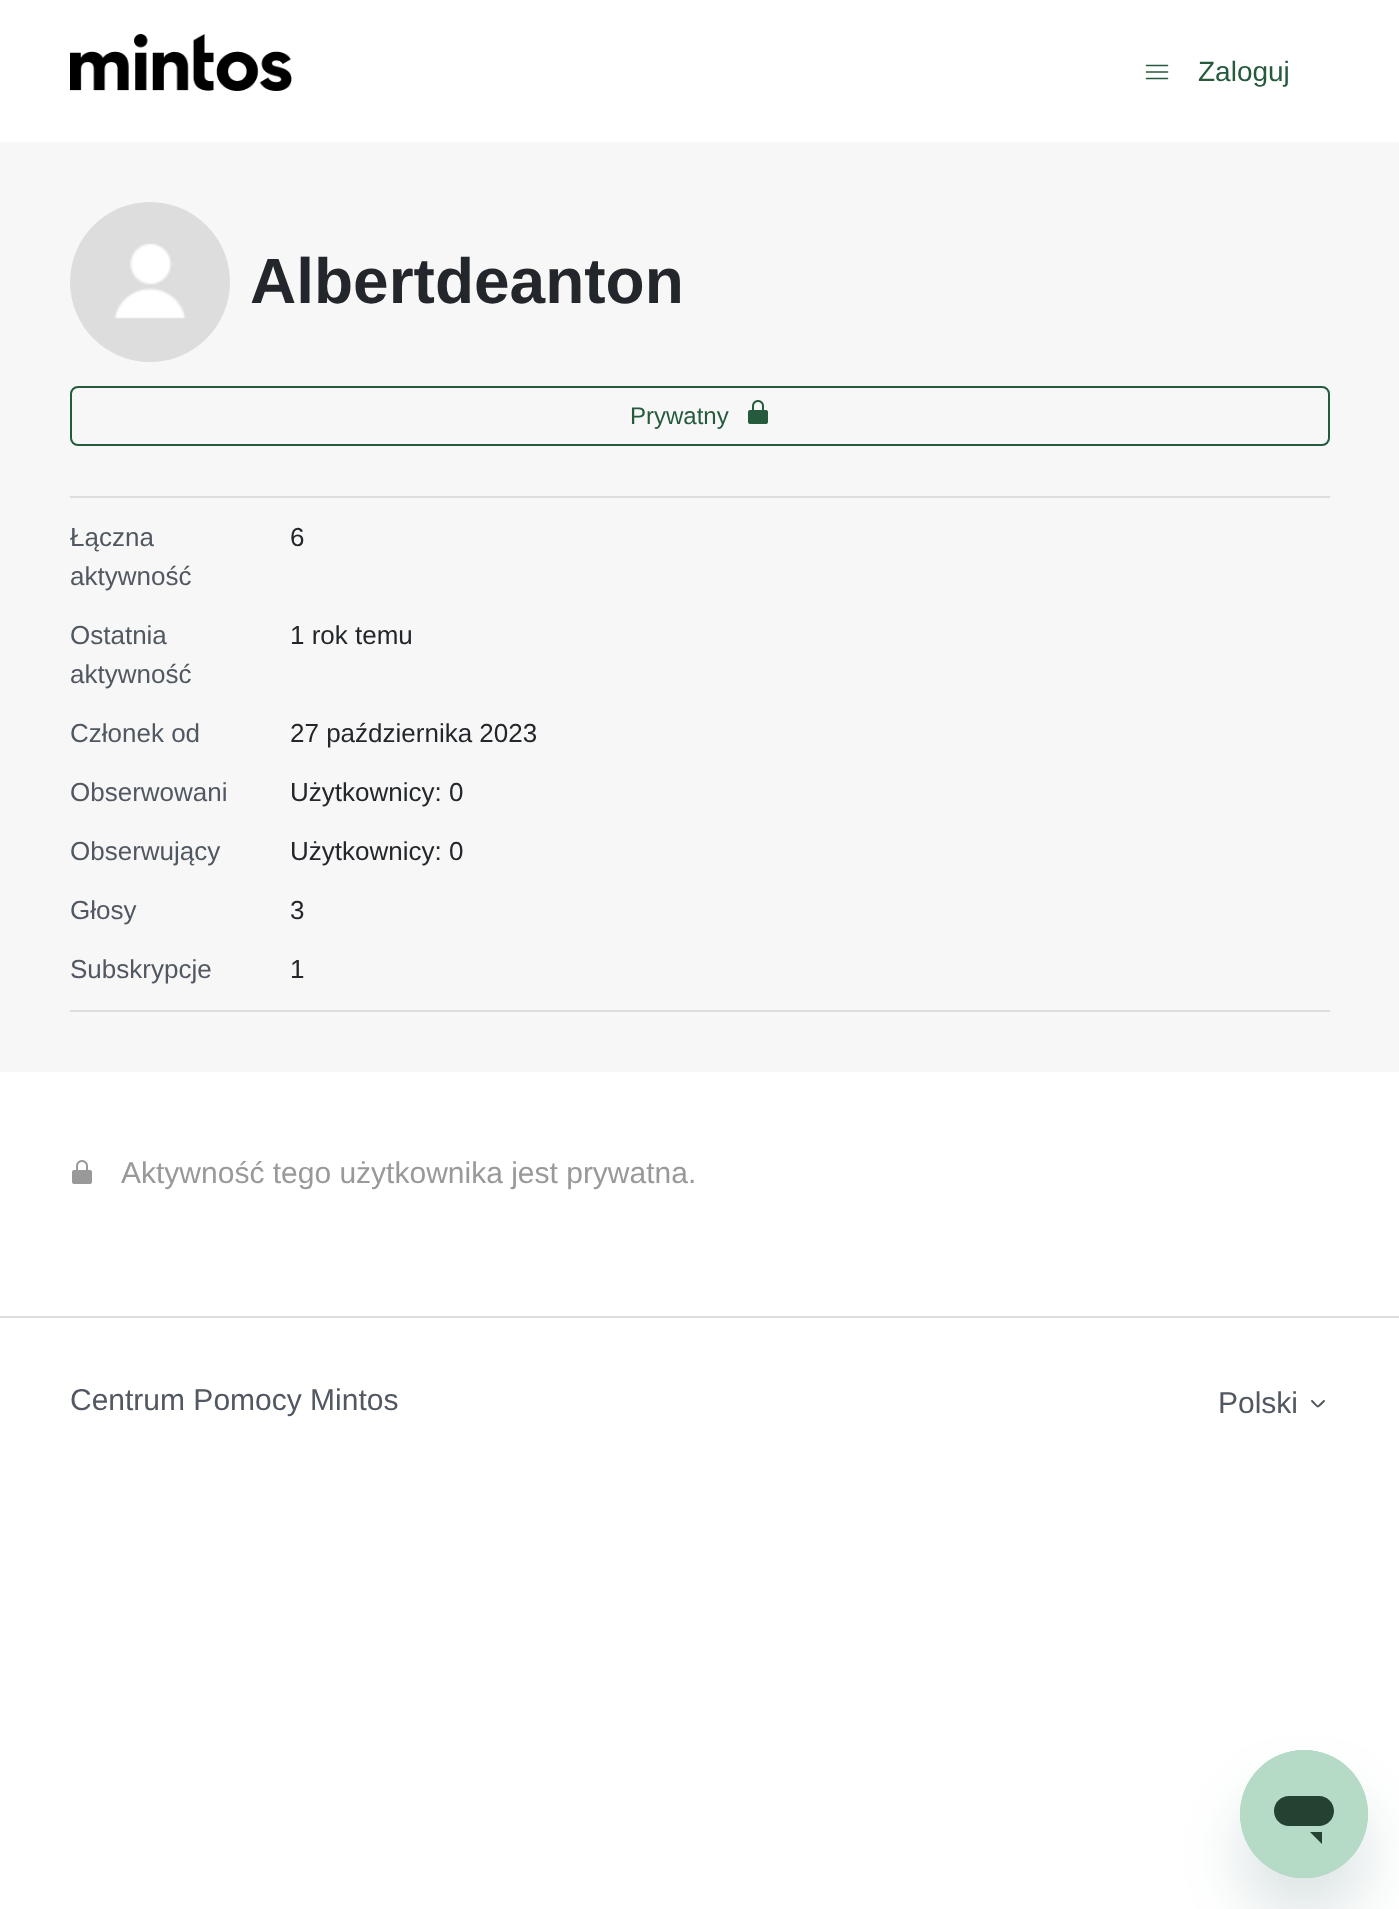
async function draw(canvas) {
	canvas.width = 1399;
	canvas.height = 1909;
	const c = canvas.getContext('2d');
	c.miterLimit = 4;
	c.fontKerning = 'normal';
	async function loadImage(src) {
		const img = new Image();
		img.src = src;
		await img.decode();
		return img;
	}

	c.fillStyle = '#fff';
	c.fillRect(0, 0, 1399, 1909);
	c.drawImage(await loadImage('img1.png'), 70, 34, 222, 57);
	c.beginPath();
	c.moveTo(1146.5, 65.5);
	c.lineTo(1167.5, 65.5);
	c.moveTo(1146.5, 72);
	c.lineTo(1167.5, 72);
	c.moveTo(1146.5, 78.5);
	c.lineTo(1167.5, 78.5);
	c.strokeStyle = '#255a3c';
	c.lineWidth = 1.6;
	c.lineCap = 'round';
	c.stroke();
	c.font = '28px Liberation Sans';
	c.fillStyle = '#255a3c';
	c.fillText('Zaloguj', 1198, 81);
	c.fillStyle = '#f7f7f7';
	c.fillRect(0, 142, 1399, 930);
	c.drawImage(await loadImage('img2.png'), 70, 202, 160, 160);
	c.font = 'bold 64px Liberation Sans';
	c.fillStyle = '#23262a';
	c.fillText('Albertdeanton', 250, 303);
	c.beginPath();
	c.roundRect(71, 387, 1258, 58, 7);
	c.lineWidth = 2;
	c.stroke();
	c.font = '24px Liberation Sans';
	c.fillStyle = '#255a3c';
	c.fillText('Prywatny', 630, 424);
	c.drawImage(await loadImage('img3.png'), 748, 400, 20, 24);
	c.fillStyle = '#ddd';
	c.fillRect(70, 496, 1260, 2);
	c.font = '26px Liberation Sans';
	c.fillStyle = '#515862';
	c.fillText('Łączna', 70, 546);
	c.fillText('aktywność', 70, 585);
	c.fillStyle = '#23262a';
	c.fillText('6', 290, 546);
	c.fillStyle = '#515862';
	c.fillText('Ostatnia', 70, 644);
	c.fillText('aktywność', 70, 683);
	c.fillStyle = '#23262a';
	c.fillText('1 rok temu', 290, 644);
	c.fillStyle = '#515862';
	c.fillText('Członek od', 70, 742);
	c.fillStyle = '#23262a';
	c.fillText('27 października 2023', 290, 742);
	c.fillStyle = '#ddd';
	c.fillRect(70, 1010, 1260, 2);
	c.fillStyle = '#515862';
	c.fillText('Obserwowani', 70, 801);
	c.fillStyle = '#23262a';
	c.fillText('Użytkownicy: 0', 290, 801);
	c.fillStyle = '#515862';
	c.fillText('Obserwujący', 70, 860);
	c.fillStyle = '#23262a';
	c.fillText('Użytkownicy: 0', 290, 860);
	c.fillStyle = '#515862';
	c.fillText('Głosy', 70, 919);
	c.fillStyle = '#23262a';
	c.fillText('3', 290, 919);
	c.fillStyle = '#515862';
	c.fillText('Subskrypcje', 70, 978);
	c.fillStyle = '#23262a';
	c.fillText('1', 290, 978);
	c.drawImage(await loadImage('img4.png'), 72, 1160, 20, 24);
	c.font = '30px Liberation Sans';
	c.fillStyle = '#999';
	c.fillText('Aktywność tego użytkownika jest prywatna.', 121, 1183);
	c.fillStyle = '#ddd';
	c.fillRect(0, 1316, 1399, 2);
	c.fillStyle = '#515862';
	c.fillText('Centrum Pomocy Mintos', 70, 1410);
	c.fillText('Polski', 1218, 1413);
	c.beginPath();
	c.moveTo(1312, 1401);
	c.bezierCurveTo(1319.5, 1408.5, 1316.5, 1408, 1324, 1401);
	c.strokeStyle = '#515862';
	c.stroke();
	c.fillStyle = '#17494d26';
	c.filter = 'blur(30px)';
	c.beginPath();
	c.roundRect(1240, 1790, 128, 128, 64);
	c.fill();
	c.filter = 'none';
	c.drawImage(await loadImage('img5.png'), 1240, 1750, 128, 128);
}

draw(document.querySelector('canvas'));
